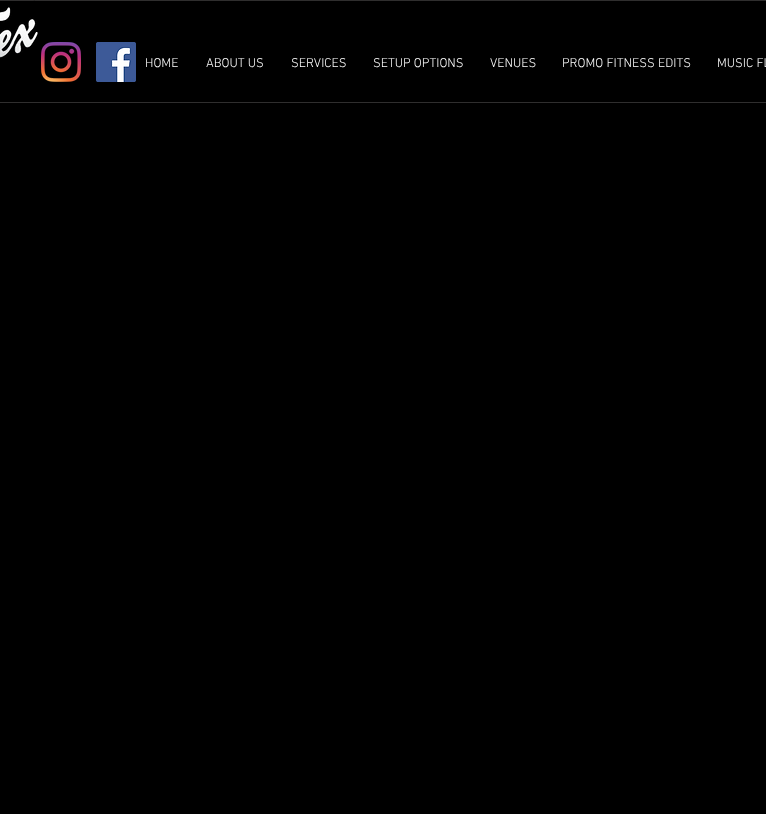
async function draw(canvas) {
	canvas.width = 766;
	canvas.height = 814;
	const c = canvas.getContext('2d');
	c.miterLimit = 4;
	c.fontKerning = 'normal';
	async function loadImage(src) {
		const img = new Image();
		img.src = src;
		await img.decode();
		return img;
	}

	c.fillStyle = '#000';
	c.fillRect(0, 0, 766, 814);
	c.fillStyle = '#2f2e2e';
	c.fillRect(0, 0, 766, 1);
	c.fillRect(0, 102, 766, 1);
	c.drawImage(await loadImage('img1.png'), 0, 0, 38, 58);
	c.drawImage(await loadImage('img2.png'), 41, 42, 40, 40);
	c.drawImage(await loadImage('img3.png'), 96, 42, 40, 40);
	c.font = '300 13px "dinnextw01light"';
	c.fillStyle = '#fff';
	for (const [text, x, y] of [
		['HOME', 145, 67],
		['ABOUT US', 206, 67],
		['SERVICES', 291, 67],
		['SETUP OPTIONS', 373, 67],
		['VENUES', 490, 67],
		['PROMO FITNESS EDITS', 562, 67],
		['MUSIC FL', 717, 67],
	]) {
		c.fillText(text, x, y);
	}
}

draw(document.querySelector('canvas'));
